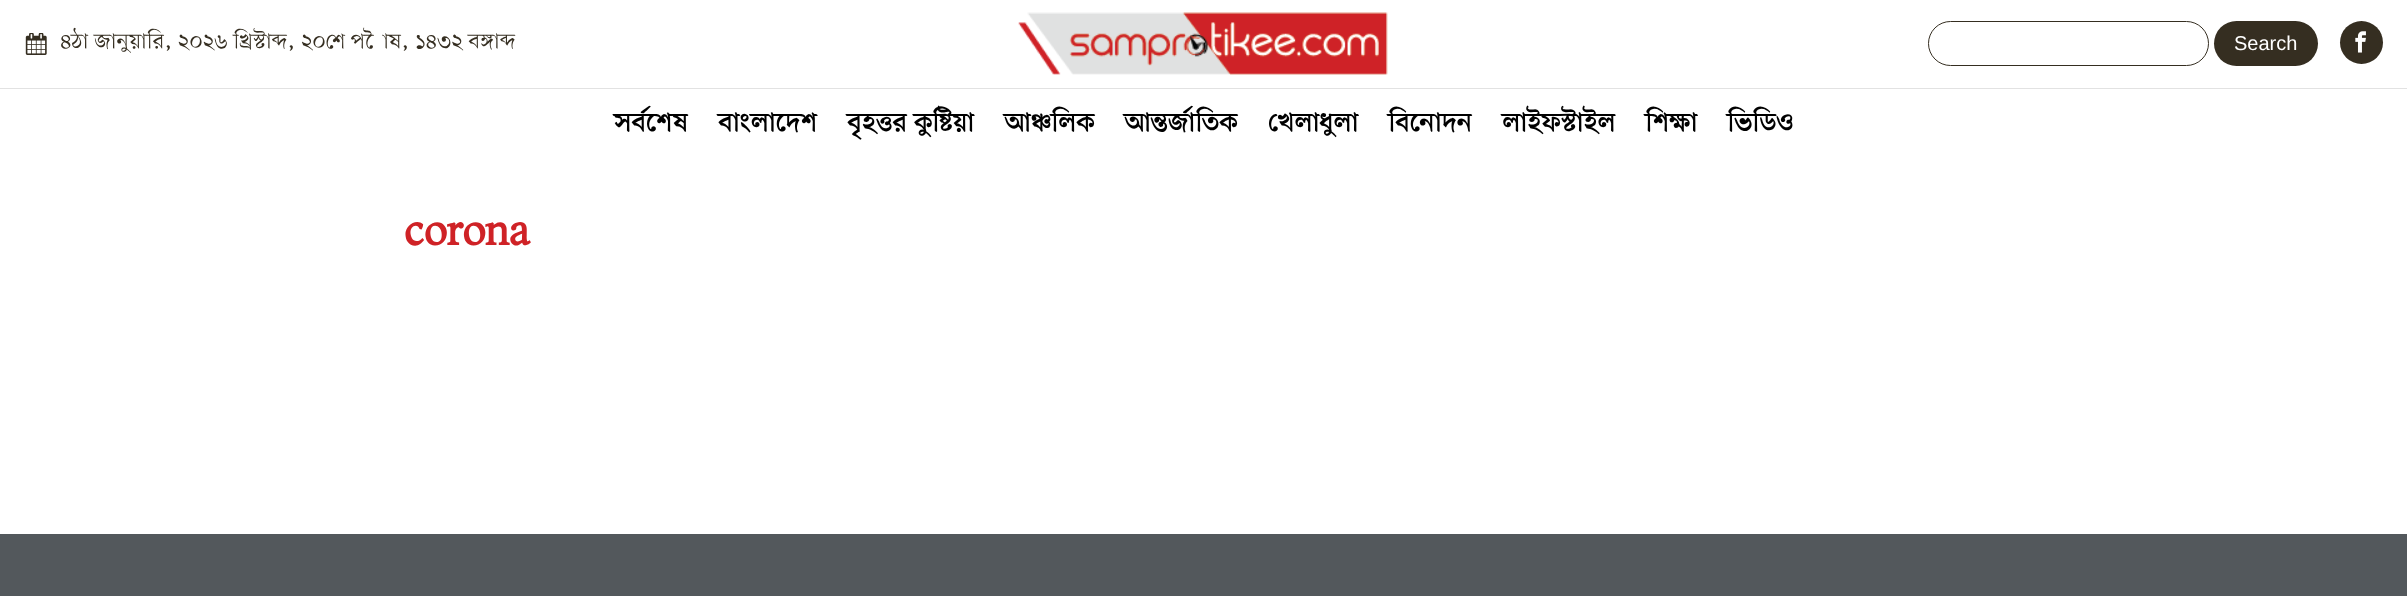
async function draw(canvas) {
	canvas.width = 2407;
	canvas.height = 596;
	const c = canvas.getContext('2d');
	c.miterLimit = 4;
	c.fontKerning = 'normal';
	async function loadImage(src) {
		const img = new Image();
		img.src = src;
		await img.decode();
		return img;
	}

	c.fillStyle = '#fff';
	c.fillRect(0, 0, 2407, 596);
	c.drawImage(await loadImage('img1.png'), 25, 33, 22, 22);
	c.font = '22.5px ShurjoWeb';
	c.fillStyle = '#352e21';
	c.fillText('৪ঠা জানুয়ারি, ২০২৬ খ্রিস্টাব্দ, ২০শে পৌষ, ১৪৩২ বঙ্গাব্দ', 60, 48);
	c.drawImage(await loadImage('img2.png'), 1018, 12, 370, 63);
	c.beginPath();
	c.roundRect(1928.5, 21.5, 280, 44, 22);
	c.strokeStyle = '#352e21';
	c.stroke();
	c.beginPath();
	c.roundRect(2214, 21, 104, 45, 22.5);
	c.fill();
	c.font = '20px Liberation Sans';
	c.fillStyle = '#fff';
	c.fillText('Search', 2234, 50);
	c.fillStyle = '#352e21';
	c.beginPath();
	c.arc(2361.5, 42.5, 21.5, 0, 2 * Math.PI);
	c.fill();
	c.drawImage(await loadImage('img3.png'), 2355, 31, 11, 22);
	c.fillStyle = '#e2e2e2';
	c.fillRect(0, 88, 2407, 1);
	c.font = 'bold 27.5px ShurjoWeb';
	c.fillStyle = '#000';
	for (const [text, x, y] of [
		['সর্বশেষ', 614, 131],
		['বাংলাদেশ', 718, 131],
		['বৃহত্তর কুষ্টিয়া', 847, 131],
		['আঞ্চলিক', 1004, 131],
		['আন্তর্জাতিক', 1124, 131],
		['খেলাধুলা', 1268, 131],
		['বিনোদন', 1388, 131],
		['লাইফস্টাইল', 1502, 131],
		['শিক্ষা', 1645, 131],
		['ভিডিও', 1727, 131],
	]) {
		c.fillText(text, x, y);
	}
	c.font = 'bold 45px ShurjoWeb';
	c.fillStyle = '#cf2226';
	c.fillText('corona', 404, 245);
	c.fillStyle = '#53585c';
	c.fillRect(0, 534, 2407, 62);
}

draw(document.querySelector('canvas'));
